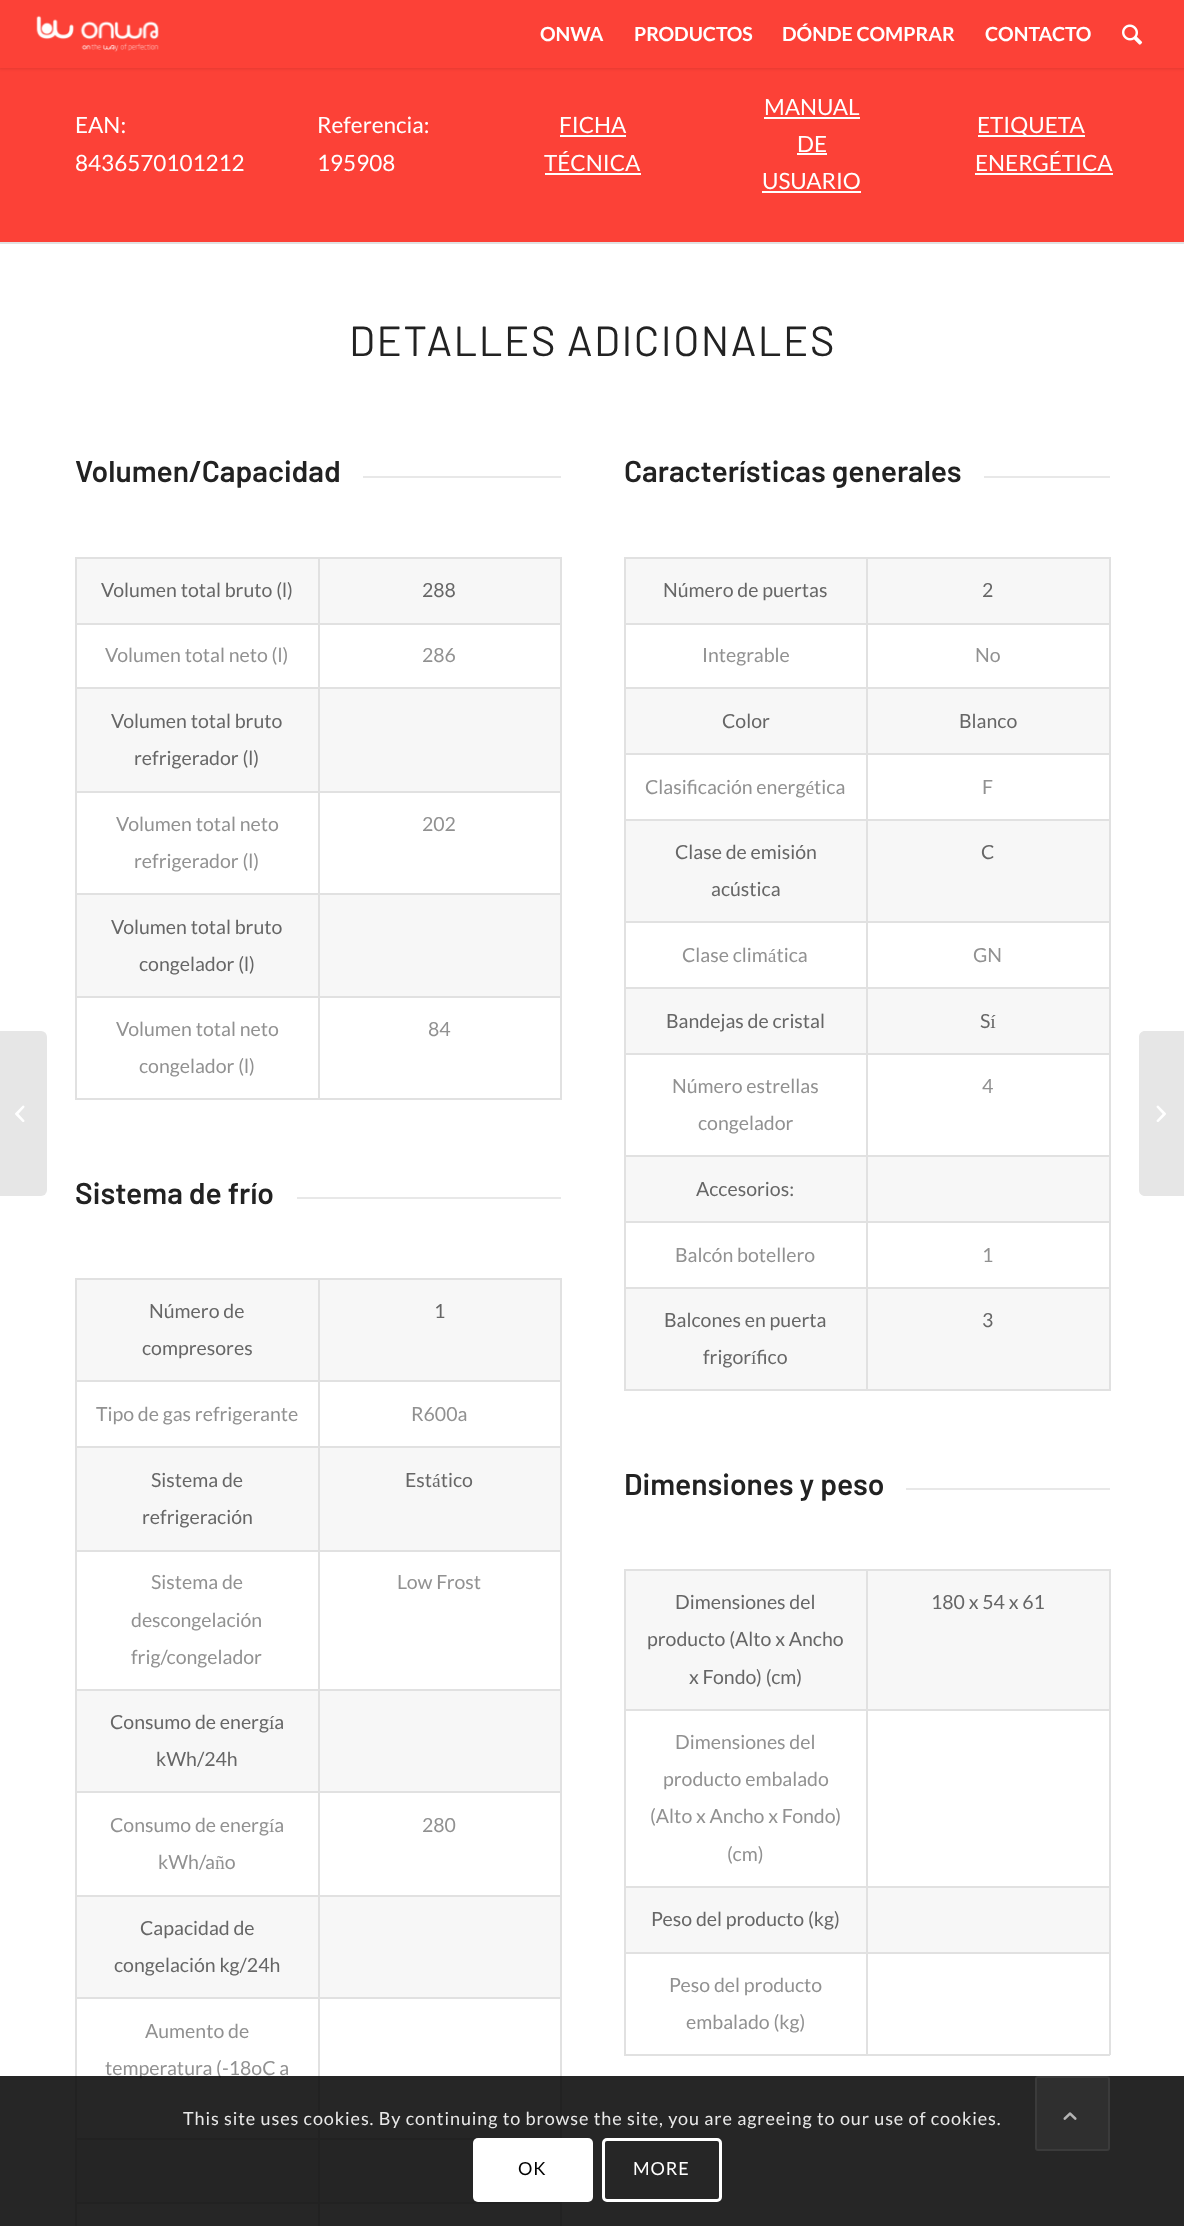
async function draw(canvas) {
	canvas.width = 1184;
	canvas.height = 2226;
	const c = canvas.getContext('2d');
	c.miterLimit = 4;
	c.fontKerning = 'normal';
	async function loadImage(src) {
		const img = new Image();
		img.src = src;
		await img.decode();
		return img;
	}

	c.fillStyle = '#fc4137';
	c.fillRect(0, 0, 1184, 2226);
	c.fillStyle = '#0000001a';
	c.filter = 'blur(1.5px)';
	c.beginPath();
	c.rect(-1, -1, 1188, 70);
	c.fill();
	c.filter = 'none';
	c.fillStyle = '#fc4137';
	c.fillRect(0, 0, 1184, 68);
	c.drawImage(await loadImage('img1.png'), 36, 15, 123, 37);
	c.font = 'bold 19.5px Lato';
	c.fillStyle = '#fff';
	for (const [text, x, y] of [
		['ONWA', 540, 41],
		['PRODUCTOS', 634, 41],
		['DÓNDE COMPRAR', 782, 41],
		['CONTACTO', 985, 41],
	]) {
		c.fillText(text, x, y);
	}
	c.drawImage(await loadImage('img2.png'), 1122, 24, 21, 21);
	c.fillRect(0, 244, 1184, 1982);
	c.fillStyle = '#e6e6e6';
	c.beginPath();
	c.roundRect(0, 1031, 47, 165, [0, 6, 6, 0]);
	c.fill();
	c.drawImage(await loadImage('img3.png'), 15, 1105, 10, 17);
	c.font = '22.5px Lato';
	c.fillStyle = '#fff';
	for (const [text, x, y] of [
		['EAN:', 75, 133],
		['8436570101212', 75, 171],
		['Referencia:', 317, 133],
		['195908', 317, 171],
		['FICHA', 559, 133],
	]) {
		c.fillText(text, x, y);
	}
	c.fillRect(560, 135, 66, 2);
	c.fillText('TÉCNICA', 544, 171);
	c.fillRect(545, 173, 96, 2);
	c.fillText('MANUAL', 764, 115);
	c.fillRect(764, 117, 96, 2);
	c.fillText('DE', 797, 152);
	c.fillRect(797, 153, 30, 2);
	c.fillText('USUARIO', 762, 189);
	c.fillRect(762, 191, 99, 2);
	c.fillRect(978, 135, 107, 2);
	c.fillText('ETIQUETA', 977, 133);
	c.fillText('ENERGÉTICA', 975, 171);
	c.fillRect(975, 173, 138, 2);
	c.fillStyle = '#e1e1e1';
	c.fillRect(0, 242, 1184, 2);
	c.letterSpacing = '1.5px';
	c.font = '42px Barlow';
	c.fillStyle = '#222';
	c.fillText('DETALLES ADICIONALES', 349, 356);
	c.letterSpacing = '0px';
	c.font = '600 30px Barlow';
	c.fillText('Volumen/Capacidad', 75, 482);
	for (const [x, y, w, h, color] of [
		[363, 476, 198, 2, '#e8e8e8'],
		[77, 559, 483, 437, '#f7f7f7'],
		[75, 557, 486, 2, '#e1e1e1'],
		[560, 623, 2, 477, '#e1e1e1'],
		[560, 557, 2, 67, '#e1e1e1'],
		[77, 625, 483, 62, '#fff'],
		[77, 793, 483, 100, '#fff'],
		[318, 1098, 243, 2, '#e1e1e1'],
		[318, 996, 2, 104, '#e1e1e1'],
		[318, 996, 243, 2, '#e1e1e1'],
		[318, 893, 2, 105, '#e1e1e1'],
		[318, 893, 243, 2, '#e1e1e1'],
		[318, 791, 2, 103, '#e1e1e1'],
		[318, 791, 243, 2, '#e1e1e1'],
		[318, 687, 2, 105, '#e1e1e1'],
		[318, 687, 243, 2, '#e1e1e1'],
		[318, 623, 2, 66, '#e1e1e1'],
		[318, 623, 243, 2, '#e1e1e1'],
		[318, 557, 2, 67, '#e1e1e1'],
		[75, 1098, 245, 2, '#e1e1e1'],
		[75, 996, 2, 104, '#e1e1e1'],
		[75, 996, 245, 2, '#e1e1e1'],
		[75, 893, 2, 105, '#e1e1e1'],
		[75, 893, 245, 2, '#e1e1e1'],
		[75, 791, 2, 103, '#e1e1e1'],
		[75, 791, 245, 2, '#e1e1e1'],
		[75, 687, 2, 105, '#e1e1e1'],
		[75, 687, 245, 2, '#e1e1e1'],
		[75, 623, 2, 66, '#e1e1e1'],
		[75, 623, 245, 2, '#e1e1e1'],
		[75, 557, 2, 67, '#e1e1e1'],
	]) {
		c.fillStyle = color;
		c.fillRect(x, y, w, h);
	}
	c.font = '19.5px Lato';
	c.fillStyle = '#666';
	c.fillText('Volumen total bruto (l)', 101, 597);
	c.fillText('288', 422, 597);
	c.fillStyle = '#919191';
	c.fillText('Volumen total neto (l)', 105, 662);
	c.fillText('286', 422, 662);
	c.fillStyle = '#666';
	c.fillText('Volumen total bruto', 111, 728);
	c.fillText('refrigerador (l)', 134, 765);
	c.fillStyle = '#919191';
	for (const [text, x, y] of [
		['Volumen total neto', 116, 831],
		['refrigerador (l)', 134, 868],
		['202', 422, 831],
	]) {
		c.fillText(text, x, y);
	}
	c.fillStyle = '#666';
	c.fillText('Volumen total bruto', 111, 934);
	c.fillText('congelador (l)', 139, 971);
	c.fillStyle = '#919191';
	for (const [text, x, y] of [
		['Volumen total neto', 116, 1036],
		['congelador (l)', 139, 1073],
		['84', 428, 1036],
	]) {
		c.fillText(text, x, y);
	}
	c.font = '600 30px Barlow';
	c.fillStyle = '#222';
	c.fillText('Sistema de frío', 75, 1204);
	for (const [x, y, w, h, color] of [
		[297, 1197, 264, 2, '#e8e8e8'],
		[77, 1280, 483, 922, '#f7f7f7'],
		[75, 1278, 486, 2, '#e1e1e1'],
		[560, 1380, 2, 759, '#e1e1e1'],
		[560, 1278, 2, 104, '#e1e1e1'],
		[77, 1382, 483, 64, '#fff'],
		[77, 1552, 483, 137, '#fff'],
		[77, 1793, 483, 102, '#fff'],
		[77, 1999, 483, 139, '#fff'],
		[318, 2202, 2, 24, '#e1e1e1'],
		[560, 2202, 2, 24, '#e1e1e1'],
		[318, 2202, 243, 2, '#e1e1e1'],
		[318, 2138, 2, 66, '#e1e1e1'],
		[318, 2138, 160, 2, '#e1e1e1'],
		[318, 1997, 2, 142, '#e1e1e1'],
		[318, 1997, 243, 2, '#e1e1e1'],
		[318, 1895, 2, 103, '#e1e1e1'],
		[318, 1895, 243, 2, '#e1e1e1'],
		[318, 1791, 2, 105, '#e1e1e1'],
		[318, 1791, 243, 2, '#e1e1e1'],
		[318, 1689, 2, 104, '#e1e1e1'],
		[318, 1689, 243, 2, '#e1e1e1'],
		[318, 1550, 2, 141, '#e1e1e1'],
		[318, 1550, 243, 2, '#e1e1e1'],
		[318, 1446, 2, 105, '#e1e1e1'],
		[318, 1446, 243, 2, '#e1e1e1'],
		[318, 1380, 2, 68, '#e1e1e1'],
		[318, 1380, 243, 2, '#e1e1e1'],
		[318, 1278, 2, 104, '#e1e1e1'],
		[75, 2202, 2, 24, '#e1e1e1'],
		[75, 2202, 245, 2, '#e1e1e1'],
		[75, 2138, 2, 66, '#e1e1e1'],
		[75, 2138, 245, 2, '#e1e1e1'],
		[75, 1997, 2, 142, '#e1e1e1'],
		[75, 1997, 245, 2, '#e1e1e1'],
		[75, 1895, 2, 103, '#e1e1e1'],
		[75, 1895, 245, 2, '#e1e1e1'],
		[75, 1791, 2, 105, '#e1e1e1'],
		[75, 1791, 245, 2, '#e1e1e1'],
		[75, 1689, 2, 104, '#e1e1e1'],
		[75, 1689, 245, 2, '#e1e1e1'],
		[75, 1550, 2, 141, '#e1e1e1'],
		[75, 1550, 245, 2, '#e1e1e1'],
		[75, 1446, 2, 105, '#e1e1e1'],
		[75, 1446, 245, 2, '#e1e1e1'],
		[75, 1380, 2, 68, '#e1e1e1'],
		[75, 1380, 245, 2, '#e1e1e1'],
		[75, 1278, 2, 104, '#e1e1e1'],
	]) {
		c.fillStyle = color;
		c.fillRect(x, y, w, h);
	}
	c.font = '19.5px Lato';
	c.fillStyle = '#666';
	for (const [text, x, y] of [
		['Número de', 149, 1318],
		['compresores', 142, 1355],
		['1', 434, 1318],
	]) {
		c.fillText(text, x, y);
	}
	c.fillStyle = '#919191';
	c.fillText('Tipo de gas refrigerante', 96, 1421);
	c.fillText('R600a', 411, 1421);
	c.fillStyle = '#666';
	for (const [text, x, y] of [
		['Sistema de', 151, 1487],
		['refrigeración', 142, 1524],
		['Estático', 405, 1487],
	]) {
		c.fillText(text, x, y);
	}
	c.fillStyle = '#919191';
	for (const [text, x, y] of [
		['Sistema de', 151, 1589],
		['descongelación', 131, 1627],
		['frig/congelador', 131, 1664],
		['Low Frost', 397, 1589],
	]) {
		c.fillText(text, x, y);
	}
	c.fillStyle = '#666';
	c.fillText('Consumo de energía', 110, 1729);
	c.fillText('kWh/24h', 156, 1766);
	c.fillStyle = '#919191';
	for (const [text, x, y] of [
		['Consumo de energía', 110, 1832],
		['kWh/año', 158, 1869],
		['280', 422, 1832],
	]) {
		c.fillText(text, x, y);
	}
	c.fillStyle = '#666';
	c.fillText('Capacidad de', 140, 1935);
	c.fillText('congelación kg/24h', 114, 1972);
	c.fillStyle = '#919191';
	c.fillText('Aumento de', 145, 2038);
	c.fillText('temperatura (-18oC a', 105, 2075);
	c.font = '600 30px Barlow';
	c.fillStyle = '#222';
	c.fillText('Características generales', 624, 482);
	for (const [x, y, w, h, color] of [
		[984, 476, 126, 2, '#e8e8e8'],
		[626, 559, 483, 830, '#f7f7f7'],
		[624, 557, 486, 2, '#e1e1e1'],
		[1109, 623, 2, 768, '#e1e1e1'],
		[1109, 557, 2, 67, '#e1e1e1'],
		[626, 625, 483, 62, '#fff'],
		[626, 755, 483, 64, '#fff'],
		[626, 923, 483, 64, '#fff'],
		[626, 1055, 483, 100, '#fff'],
		[626, 1223, 483, 64, '#fff'],
		[866, 1389, 244, 2, '#e1e1e1'],
		[866, 1287, 2, 104, '#e1e1e1'],
		[866, 1287, 244, 2, '#e1e1e1'],
		[866, 1221, 2, 68, '#e1e1e1'],
		[866, 1221, 244, 2, '#e1e1e1'],
		[866, 1155, 2, 68, '#e1e1e1'],
		[866, 1155, 244, 2, '#e1e1e1'],
		[866, 1053, 2, 104, '#e1e1e1'],
		[866, 1053, 244, 2, '#e1e1e1'],
		[866, 987, 2, 68, '#e1e1e1'],
		[866, 987, 244, 2, '#e1e1e1'],
		[866, 921, 2, 68, '#e1e1e1'],
		[866, 921, 244, 2, '#e1e1e1'],
		[866, 819, 2, 104, '#e1e1e1'],
		[866, 819, 244, 2, '#e1e1e1'],
		[866, 753, 2, 68, '#e1e1e1'],
		[866, 753, 244, 2, '#e1e1e1'],
		[866, 687, 2, 68, '#e1e1e1'],
		[866, 687, 244, 2, '#e1e1e1'],
		[866, 623, 2, 66, '#e1e1e1'],
		[866, 623, 244, 2, '#e1e1e1'],
		[866, 557, 2, 67, '#e1e1e1'],
		[624, 1389, 243, 2, '#e1e1e1'],
		[624, 1287, 2, 104, '#e1e1e1'],
		[624, 1287, 243, 2, '#e1e1e1'],
		[624, 1221, 2, 68, '#e1e1e1'],
		[624, 1221, 243, 2, '#e1e1e1'],
		[624, 1155, 2, 68, '#e1e1e1'],
		[624, 1155, 243, 2, '#e1e1e1'],
		[624, 1053, 2, 104, '#e1e1e1'],
		[624, 1053, 243, 2, '#e1e1e1'],
		[624, 987, 2, 68, '#e1e1e1'],
		[624, 987, 243, 2, '#e1e1e1'],
		[624, 921, 2, 68, '#e1e1e1'],
		[624, 921, 243, 2, '#e1e1e1'],
		[624, 819, 2, 104, '#e1e1e1'],
		[624, 819, 243, 2, '#e1e1e1'],
		[624, 753, 2, 68, '#e1e1e1'],
		[624, 753, 243, 2, '#e1e1e1'],
		[624, 687, 2, 68, '#e1e1e1'],
		[624, 687, 243, 2, '#e1e1e1'],
		[624, 623, 2, 66, '#e1e1e1'],
		[624, 623, 243, 2, '#e1e1e1'],
		[624, 557, 2, 67, '#e1e1e1'],
	]) {
		c.fillStyle = color;
		c.fillRect(x, y, w, h);
	}
	c.font = '19.5px Lato';
	c.fillStyle = '#666';
	c.fillText('Número de puertas', 663, 597);
	c.fillText('2', 982, 597);
	c.fillStyle = '#919191';
	c.fillText('Integrable', 702, 662);
	c.fillText('No', 975, 662);
	c.fillStyle = '#666';
	c.fillText('Color', 722, 728);
	c.fillText('Blanco', 959, 728);
	c.fillStyle = '#919191';
	c.fillText('Clasificación energética', 645, 794);
	c.fillText('F', 982, 794);
	c.fillStyle = '#666';
	for (const [text, x, y] of [
		['Clase de emisión', 675, 859],
		['acústica', 711, 896],
		['C', 981, 859],
	]) {
		c.fillText(text, x, y);
	}
	c.fillStyle = '#919191';
	c.fillText('Clase climática', 682, 962);
	c.fillText('GN', 973, 962);
	c.fillStyle = '#666';
	c.fillText('Bandejas de cristal', 666, 1028);
	c.fillText('Sí', 980, 1028);
	c.fillStyle = '#919191';
	for (const [text, x, y] of [
		['Número estrellas', 672, 1093],
		['congelador', 698, 1130],
		['4', 982, 1093],
	]) {
		c.fillText(text, x, y);
	}
	c.fillStyle = '#666';
	c.fillText('Accesorios:', 696, 1196);
	c.fillStyle = '#919191';
	c.fillText('Balcón botellero', 675, 1262);
	c.fillText('1', 982, 1262);
	c.fillStyle = '#666';
	for (const [text, x, y] of [
		['Balcones en puerta', 664, 1327],
		['frigorífico', 703, 1364],
		['3', 982, 1327],
	]) {
		c.fillText(text, x, y);
	}
	c.font = '600 30px Barlow';
	c.fillStyle = '#222';
	c.fillText('Dimensiones y peso', 624, 1495);
	for (const [x, y, w, h, color] of [
		[906, 1488, 204, 2, '#e8e8e8'],
		[626, 1571, 483, 381, '#f7f7f7'],
		[624, 1569, 486, 2, '#e1e1e1'],
		[1109, 1709, 2, 346, '#e1e1e1'],
		[1109, 1569, 2, 141, '#e1e1e1'],
		[626, 1711, 483, 175, '#fff'],
		[866, 2054, 244, 2, '#e1e1e1'],
		[866, 1952, 2, 103, '#e1e1e1'],
		[866, 1952, 244, 2, '#e1e1e1'],
		[866, 1886, 2, 67, '#e1e1e1'],
		[866, 1886, 244, 2, '#e1e1e1'],
		[866, 1709, 2, 178, '#e1e1e1'],
		[866, 1709, 244, 2, '#e1e1e1'],
		[866, 1569, 2, 141, '#e1e1e1'],
		[624, 2054, 243, 2, '#e1e1e1'],
		[624, 1952, 2, 103, '#e1e1e1'],
		[624, 1952, 243, 2, '#e1e1e1'],
		[624, 1886, 2, 67, '#e1e1e1'],
		[624, 1886, 243, 2, '#e1e1e1'],
		[624, 1709, 2, 178, '#e1e1e1'],
		[624, 1709, 243, 2, '#e1e1e1'],
		[624, 1569, 2, 141, '#e1e1e1'],
	]) {
		c.fillStyle = color;
		c.fillRect(x, y, w, h);
	}
	c.font = '19.5px Lato';
	c.fillStyle = '#666';
	for (const [text, x, y] of [
		['Dimensiones del', 675, 1609],
		['producto (Alto x Ancho', 647, 1646],
		['x Fondo) (cm)', 689, 1684],
		['180 x 54 x 61', 931, 1609],
	]) {
		c.fillText(text, x, y);
	}
	c.fillStyle = '#919191';
	for (const [text, x, y] of [
		['Dimensiones del', 675, 1749],
		['producto embalado', 663, 1786],
		['(Alto x Ancho x Fondo)', 650, 1823],
		['(cm)', 727, 1861],
	]) {
		c.fillText(text, x, y);
	}
	c.fillStyle = '#666';
	c.fillText('Peso del producto (kg)', 651, 1926);
	c.fillStyle = '#919191';
	c.fillText('Peso del producto', 669, 1992);
	c.fillText('embalado (kg)', 686, 2029);
	c.fillStyle = '#e6e6e6';
	c.beginPath();
	c.moveTo(1145, 1031);
	c.lineTo(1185, 1031);
	c.lineTo(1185, 1196);
	c.lineTo(1145, 1196);
	c.bezierCurveTo(1141.5, 1196, 1139, 1193.5, 1139, 1190);
	c.lineTo(1139, 1037);
	c.bezierCurveTo(1139, 1033.5, 1141.5, 1031, 1145, 1031);
	c.closePath();
	c.fill();
	c.drawImage(await loadImage('img4.png'), 1156, 1105, 10, 17);
	c.fillStyle = '#000000d9';
	c.fillRect(0, 2076, 1184, 150);
	c.letterSpacing = '0.9px';
	c.font = '18px Lato';
	c.fillStyle = '#e9e9e9';
	c.fillText('This site uses cookies. By continuing to browse the site, you are agreeing to our use of cookies.', 183, 2125);
	c.fillStyle = '#fff';
	c.beginPath();
	c.roundRect(473, 2138, 120, 64, 5);
	c.fill();
	c.fillStyle = '#000';
	c.fillText('OK', 518, 2175);
	c.beginPath();
	c.roundRect(603.5, 2139.5, 117, 61, 3.5);
	c.strokeStyle = '#fff';
	c.lineWidth = 3;
	c.stroke();
	c.fillStyle = '#fff';
	c.fillText('MORE', 633, 2175);
	c.fillStyle = '#2f2f2f';
	c.beginPath();
	c.roundRect(1036, 2077, 73, 73, 2);
	c.fill();
	c.strokeStyle = '#3b3b3b';
	c.lineWidth = 2;
	c.stroke();
	c.drawImage(await loadImage('img5.png'), 1063, 2112, 14, 8);
}

draw(document.querySelector('canvas'));
